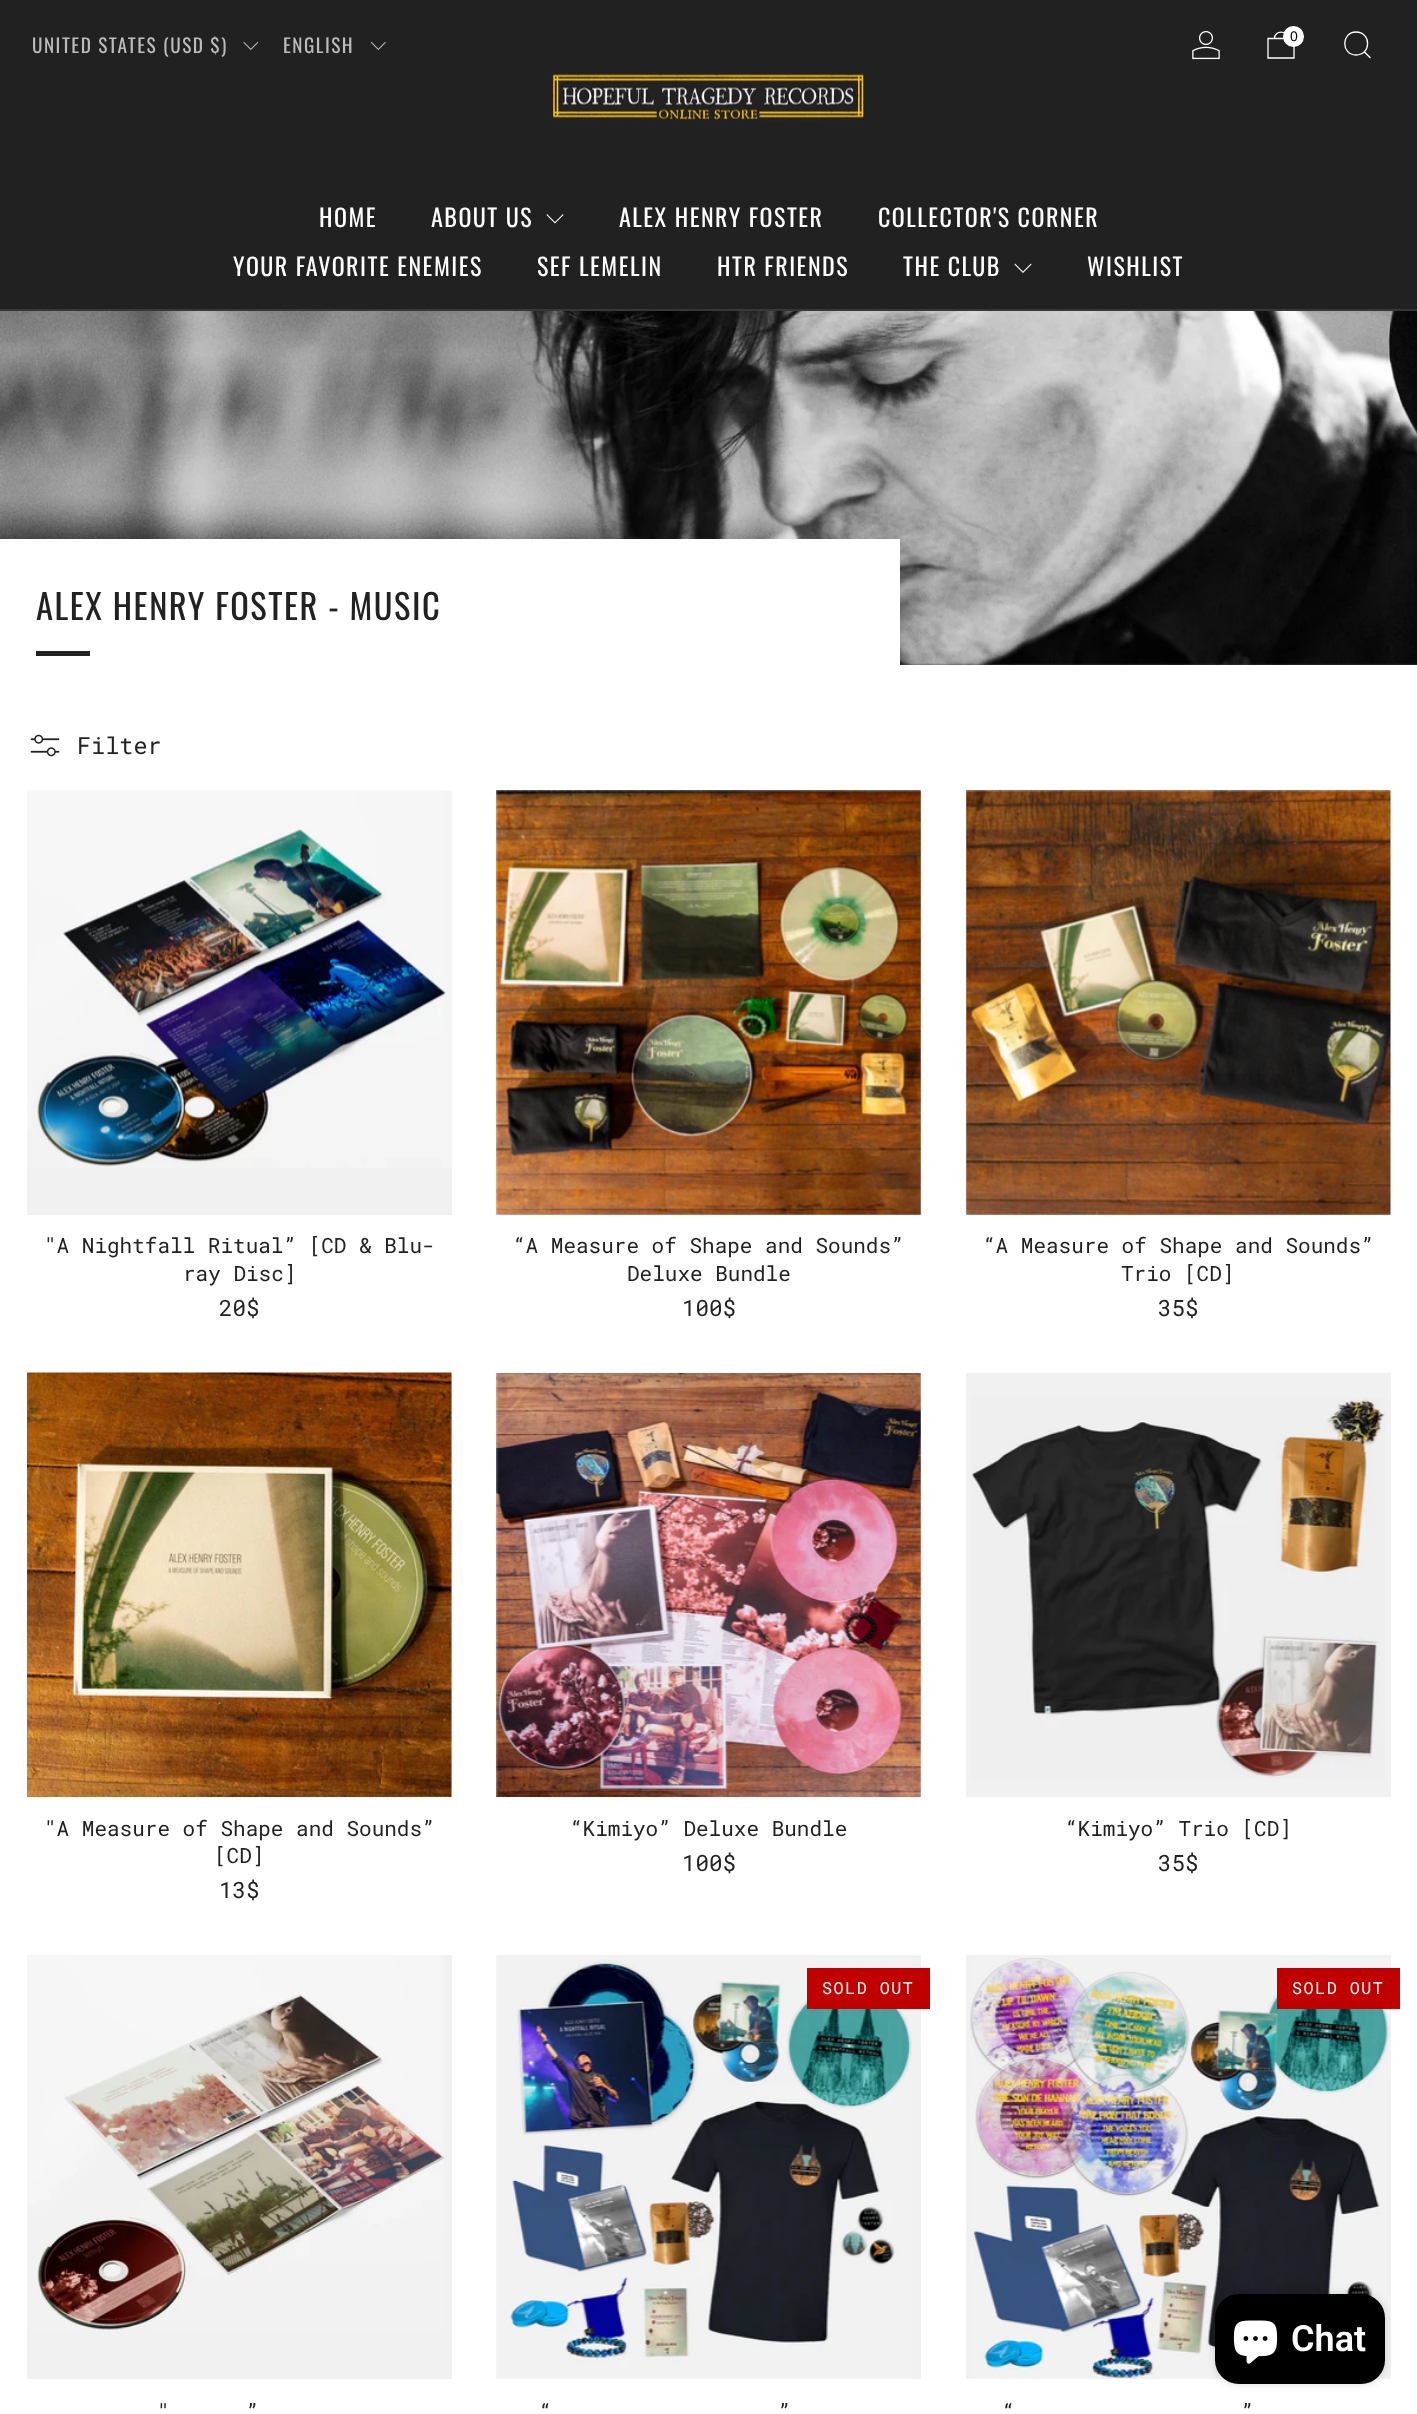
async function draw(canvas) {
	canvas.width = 1417;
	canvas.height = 2414;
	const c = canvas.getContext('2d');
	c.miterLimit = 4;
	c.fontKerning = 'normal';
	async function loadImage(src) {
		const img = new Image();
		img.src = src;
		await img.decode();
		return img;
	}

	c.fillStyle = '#fff';
	c.fillRect(0, 0, 1417, 2414);
	c.fillStyle = '#212121';
	c.fillRect(0, 0, 1417, 309);
	c.fillStyle = '#373737';
	c.fillRect(0, 309, 1417, 2);
	c.letterSpacing = '1.5px';
	c.font = '19.25px Oswald';
	c.fillStyle = '#bcbcbc';
	c.fillText('UNITED STATES (USD $)', 32, 53);
	c.drawImage(await loadImage('img1.png'), 243, 42, 16, 8);
	c.fillText('ENGLISH', 283, 53);
	c.drawImage(await loadImage('img2.png'), 370, 42, 16, 8);
	c.drawImage(await loadImage('img3.png'), 1192, 31, 28, 29);
	c.beginPath();
	c.moveTo(1268, 38.5);
	c.lineTo(1294, 38.5);
	c.lineTo(1294, 58);
	c.lineTo(1268, 58);
	c.closePath();
	c.moveTo(1287.5, 38.5);
	c.bezierCurveTo(1287.5, 30, 1274.5, 30, 1274.5, 38.5);
	c.strokeStyle = '#fff';
	c.lineWidth = 1.3;
	c.stroke();
	c.fillStyle = '#fff';
	c.beginPath();
	c.arc(1293.5, 36.5, 10.5, 0, 2 * Math.PI);
	c.fill();
	c.letterSpacing = '0px';
	c.font = '14px Liberation Sans';
	c.fillStyle = '#000';
	c.fillText('0', 1290, 41);
	c.beginPath();
	c.moveTo(1356, 55);
	c.bezierCurveTo(1371.5, 55, 1371.5, 32, 1356, 32);
	c.bezierCurveTo(1341, 32, 1341, 55, 1356, 55);
	c.closePath();
	c.moveTo(1364.5, 52);
	c.lineTo(1370.5, 58);
	c.stroke();
	c.letterSpacing = '1.5px';
	c.font = '24px Oswald';
	c.fillStyle = '#fff';
	c.fillText('HOME', 319, 227);
	c.fillText('ABOUT US', 431, 227);
	c.beginPath();
	c.moveTo(547, 214);
	c.lineTo(546.5, 215);
	c.lineTo(555, 223.5);
	c.lineTo(563.5, 215);
	c.lineTo(563, 214);
	c.lineTo(555, 222);
	c.closePath();
	c.fill();
	for (const [text, x, y] of [
		['ALEX HENRY FOSTER', 619, 227],
		['COLLECTOR\'S CORNER', 878, 227],
		['YOUR FAVORITE ENEMIES', 233, 276],
		['SEF LEMELIN', 537, 276],
		['HTR FRIENDS', 717, 276],
		['THE CLUB', 903, 276],
	]) {
		c.fillText(text, x, y);
	}
	c.beginPath();
	c.moveTo(1015, 263.5);
	c.lineTo(1014.5, 264.5);
	c.lineTo(1023, 273);
	c.lineTo(1031.5, 264.5);
	c.lineTo(1031, 263.5);
	c.lineTo(1023, 271.5);
	c.closePath();
	c.fill();
	c.fillText('WISHLIST', 1087, 276);
	c.drawImage(await loadImage('img4.png'), 551, 73, 314, 49);
	c.fillStyle = '#4e4e4e';
	c.fillRect(900, 663, 517, 2);
	c.drawImage(await loadImage('img5.png'), 0, 311, 1417, 354);
	c.fillStyle = '#fff';
	c.fillRect(0, 539, 900, 126);
	c.font = '34.5px Oswald';
	c.fillStyle = '#222';
	c.fillText('ALEX HENRY FOSTER - MUSIC', 36, 620);
	c.fillRect(36, 651, 54, 5);
	c.drawImage(await loadImage('img6.png'), 30, 734, 30, 23);
	c.letterSpacing = '0px';
	c.font = '23.5px Roboto Mono';
	c.fillText('Filter', 77, 754);
	c.fillStyle = '#f1f1f1';
	c.fillRect(27, 791, 425, 424);
	c.drawImage(await loadImage('img7.png'), 27, 790, 425, 378);
	c.font = '21px Roboto Mono';
	c.fillStyle = '#222';
	c.fillText('"A Nightfall Ritual” [CD & Blu-', 44, 1253);
	c.fillText('ray Disc]', 183, 1281);
	c.font = '22.5px Roboto Mono';
	c.fillText('20$', 219, 1316);
	c.fillStyle = '#f1f1f1';
	c.fillRect(497, 791, 424, 424);
	c.drawImage(await loadImage('img8.png'), 496, 790, 425, 425);
	c.font = '21px Roboto Mono';
	c.fillStyle = '#222';
	c.fillText('“A Measure of Shape and Sounds”', 513, 1253);
	c.fillText('Deluxe Bundle', 627, 1281);
	c.font = '22.5px Roboto Mono';
	c.fillText('100$', 682, 1316);
	c.fillStyle = '#f1f1f1';
	c.fillRect(966, 791, 425, 424);
	c.drawImage(await loadImage('img9.png'), 966, 790, 425, 425);
	c.font = '21px Roboto Mono';
	c.fillStyle = '#222';
	c.fillText('‌“A Measure of Shape and Sounds”', 983, 1253);
	c.fillText('Trio [CD]', 1121, 1281);
	c.font = '22.5px Roboto Mono';
	c.fillText('35$', 1158, 1316);
	c.fillStyle = '#f1f1f1';
	c.fillRect(451, 1373, 1, 424);
	c.drawImage(await loadImage('img10.png'), 27, 1372, 425, 425);
	c.font = '21px Roboto Mono';
	c.fillStyle = '#222';
	c.fillText('"A Measure of Shape and Sounds”', 44, 1836);
	c.fillText('[CD]', 214, 1863);
	c.font = '22.5px Roboto Mono';
	c.fillText('13$', 219, 1898);
	c.drawImage(await loadImage('img11.png'), 496, 1373, 425, 424);
	c.font = '21px Roboto Mono';
	c.fillText('“Kimiyo” Deluxe Bundle', 570, 1836);
	c.font = '22.5px Roboto Mono';
	c.fillText('100$', 682, 1871);
	c.fillStyle = '#f1f1f1';
	c.fillRect(966, 1373, 425, 424);
	c.drawImage(await loadImage('img12.png'), 971, 1397, 415, 382);
	c.font = '21px Roboto Mono';
	c.fillStyle = '#222';
	c.fillText('‌“Kimiyo” Trio [CD]', 1065, 1836);
	c.font = '22.5px Roboto Mono';
	c.fillText('35$', 1158, 1871);
	c.fillStyle = '#f1f1f1';
	c.fillRect(27, 1955, 425, 424);
	c.drawImage(await loadImage('img13.png'), 27, 1955, 418, 377);
	c.font = '21px Roboto Mono';
	c.fillStyle = '#222';
	c.fillText('"', 157, 2419);
	c.fillText('”', 246, 2419);
	c.fillStyle = '#f1f1f1';
	c.fillRect(497, 1955, 424, 424);
	c.drawImage(await loadImage('img14.png'), 496, 1955, 416, 424);
	c.fillStyle = '#c00000';
	c.fillRect(807, 1968, 123, 41);
	c.letterSpacing = '1.5px';
	c.font = '16.75px Roboto Mono';
	c.fillStyle = '#fff';
	c.fillText('SOLD OUT', 822, 1994);
	c.letterSpacing = '0px';
	c.font = '21px Roboto Mono';
	c.fillStyle = '#222';
	c.fillText('“', 539, 2419);
	c.fillText('”', 778, 2419);
	c.fillStyle = '#f1f1f1';
	c.fillRect(966, 1955, 425, 424);
	c.drawImage(await loadImage('img15.png'), 970, 1957, 420, 422);
	c.fillStyle = '#c00000';
	c.fillRect(1277, 1968, 123, 41);
	c.letterSpacing = '1.5px';
	c.font = '16.75px Roboto Mono';
	c.fillStyle = '#fff';
	c.fillText('SOLD OUT', 1292, 1994);
	c.letterSpacing = '0px';
	c.font = '21px Roboto Mono';
	c.fillStyle = '#222';
	c.fillText('“', 1002, 2419);
	c.fillText('”', 1241, 2419);
	c.fillStyle = '#00000026';
	c.filter = 'blur(4px)';
	c.beginPath();
	c.roundRect(1215, 2294, 170, 90, 24);
	c.fill();
	c.filter = 'none';
	c.fillStyle = '#000';
	c.beginPath();
	c.roundRect(1215, 2294, 170, 90, 24);
	c.fill();
	c.drawImage(await loadImage('img16.png'), 1233, 2320, 45, 44);
	c.font = '600 36px Roboto';
	c.fillStyle = '#fff';
	c.fillText('Chat', 1291, 2351);
}

draw(document.querySelector('canvas'));
